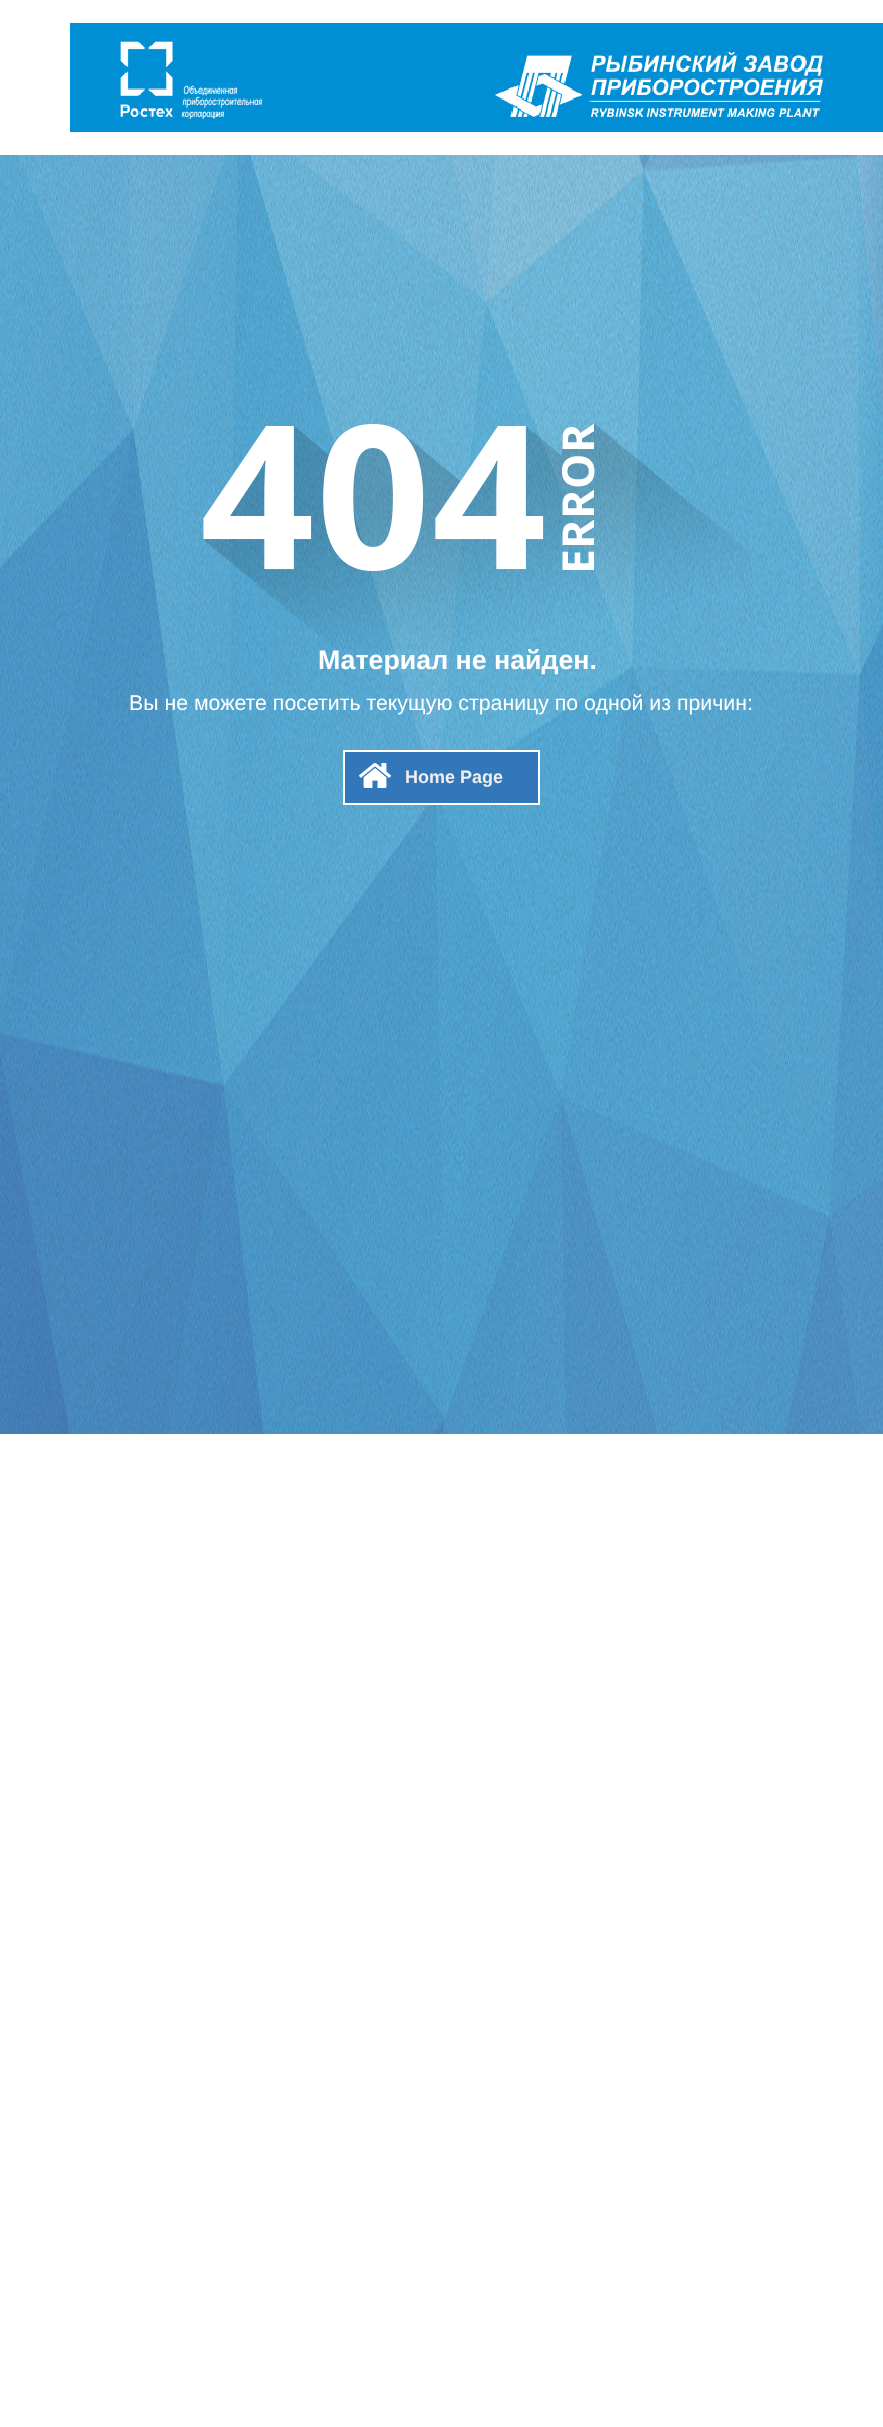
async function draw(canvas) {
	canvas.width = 883;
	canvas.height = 2427;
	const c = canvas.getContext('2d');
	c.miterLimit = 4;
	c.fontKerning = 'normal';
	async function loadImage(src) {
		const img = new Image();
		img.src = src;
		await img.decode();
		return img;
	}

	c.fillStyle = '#fff';
	c.fillRect(0, 0, 883, 2427);
	c.drawImage(await loadImage('img1.png'), 0, 155, 883, 1279);
	c.drawImage(await loadImage('img2.png'), 70, 23, 813, 109);
	c.drawImage(await loadImage('img3.png'), 203, 423, 549, 226);
	c.font = 'bold 26.75px Liberation Sans';
	c.fillText('Материал не найден.', 318, 669);
	c.font = '21.3px Liberation Sans';
	c.fillText('Вы не можете посетить текущую страницу по одной из причин:', 129, 710);
	c.fillStyle = '#37b';
	c.fillRect(345, 752, 193, 51);
	c.drawImage(await loadImage('img4.png'), 359, 763, 32, 25);
	c.strokeStyle = '#fff';
	c.lineWidth = 2;
	c.strokeRect(344, 751, 195, 53);
	c.font = 'bold 18px Liberation Sans';
	c.fillStyle = '#eee';
	c.fillText('Home Page', 405, 783);
}

draw(document.querySelector('canvas'));
